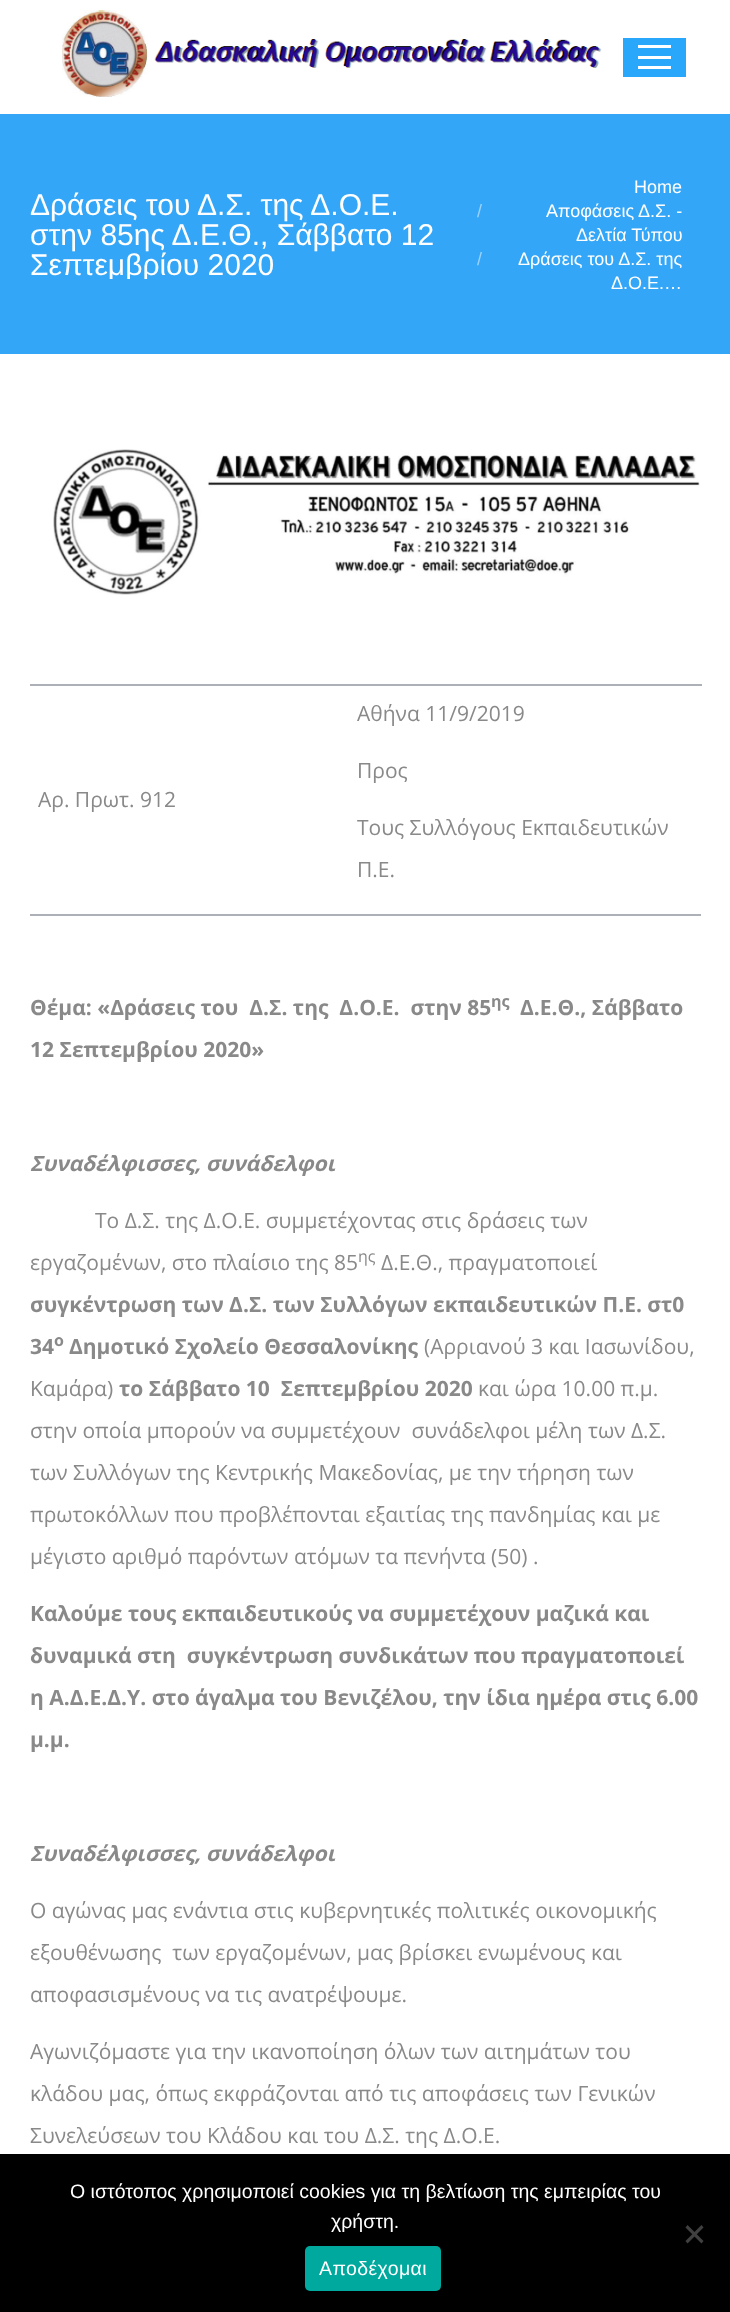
async function draw(canvas) {
	canvas.width = 730;
	canvas.height = 2312;
	const c = canvas.getContext('2d');
	c.miterLimit = 4;
	c.fontKerning = 'normal';
	async function loadImage(src) {
		const img = new Image();
		img.src = src;
		await img.decode();
		return img;
	}

	c.fillStyle = '#fff';
	c.fillRect(0, 0, 730, 2312);
	c.drawImage(await loadImage('img1.png'), 62, 10, 540, 87);
	for (const [x, y, w, h, color] of [
		[623, 38, 63, 39, '#28a7fb'],
		[638, 45, 33, 3, '#fff'],
		[638, 56, 33, 3, '#fff'],
		[638, 66, 33, 3, '#fff'],
		[0, 114, 730, 240, '#34a6f7'],
	]) {
		c.fillStyle = color;
		c.fillRect(x, y, w, h);
	}
	c.font = '30px Liberation Sans';
	c.fillStyle = '#fff';
	c.fillText('Δράσεις του Δ.Σ. της Δ.Ο.Ε.', 30, 215);
	c.fillText('στην 85ης Δ.Ε.Θ., Σάββατο 12', 30, 245);
	c.save();
	c.beginPath();
	c.rect(30, 189, 417, 90);
	c.clip();
	c.fillText('Σεπτεμβρίου 2020', 30, 275);
	c.restore();
	c.font = '18px Liberation Sans';
	c.fillText('Home', 634, 193);
	c.fillStyle = '#9ad3fb';
	c.fillText('/', 477, 217);
	c.fillStyle = '#fff';
	c.fillText('Αποφάσεις Δ.Σ. -', 546, 217);
	c.fillText('Δελτία Τύπου', 576, 241);
	c.fillStyle = '#9ad3fb';
	c.fillText('/', 477, 265);
	c.fillStyle = '#fff';
	c.fillText('Δράσεις του Δ.Σ. της', 518, 265);
	c.fillText('Δ.Ο.Ε.…', 611, 289);
	c.drawImage(await loadImage('img2.png'), 53, 449, 647, 146);
	c.fillStyle = '#adb0b6';
	c.fillRect(30, 914, 671, 2);
	c.font = '21px Open Sans';
	c.fillStyle = '#898989';
	c.fillText('Αρ. Πρωτ. 912', 38, 807);
	c.fillStyle = '#adb0b6';
	c.fillRect(30, 684, 672, 2);
	c.fillStyle = '#898989';
	for (const [text, x, y] of [
		['Αθήνα 11/9/2019', 357, 721],
		['Προς', 357, 778],
		['Τους Συλλόγους Εκπαιδευτικών', 357, 835],
		['Π.Ε.', 357, 877],
	]) {
		c.fillText(text, x, y);
	}
	c.font = 'bold 21px Open Sans';
	c.fillText('Θέμα: «Δράσεις του  Δ.Σ. της  Δ.Ο.Ε.  στην 85', 30, 1015);
	c.font = 'bold 16px Open Sans';
	c.fillText('ης', 491, 1007);
	c.font = 'bold 21px Open Sans';
	c.fillText('Δ.Ε.Θ., Σάββατο', 520, 1015);
	c.fillText('12 Σεπτεμβρίου 2020»', 30, 1057);
	c.font = 'italic bold 21px Open Sans';
	c.fillText('Συναδέλφισσες, συνάδελφοι', 30, 1171);
	c.font = '21px Open Sans';
	c.fillText('Το Δ.Σ. της Δ.Ο.Ε. συμμετέχοντας στις δράσεις των', 95, 1228);
	c.fillText('εργαζομένων, στο πλαίσιο της 85', 30, 1270);
	c.font = '16px Open Sans';
	c.fillText('ης', 358, 1262);
	c.font = '21px Open Sans';
	c.fillText('Δ.Ε.Θ., πραγματοποιεί', 381, 1270);
	c.font = 'bold 21px Open Sans';
	c.fillText('συγκέντρωση των Δ.Σ. των Συλλόγων εκπαιδευτικών Π.Ε. στ0', 30, 1312);
	c.fillText('34', 30, 1354);
	c.font = 'bold 16px Open Sans';
	c.fillText('ο', 54, 1346);
	c.font = 'bold 21px Open Sans';
	c.fillText('Δημοτικό Σχολείο Θεσσαλονίκης', 69, 1354);
	c.font = '21px Open Sans';
	c.fillText('(Αρριανού 3 και Ιασωνίδου,', 424, 1354);
	c.fillText('Καμάρα)', 30, 1396);
	c.font = 'bold 21px Open Sans';
	c.fillText('το Σάββατο 10  Σεπτεμβρίου 2020', 119, 1396);
	c.font = '21px Open Sans';
	for (const [text, x, y] of [
		['και ώρα 10.00 π.μ.', 478, 1396],
		['στην οποία μπορούν να συμμετέχουν  συνάδελφοι μέλη των Δ.Σ.', 30, 1438],
		['των Συλλόγων της Κεντρικής Μακεδονίας, με την τήρηση των', 30, 1480],
		['πρωτοκόλλων που προβλέπονται εξαιτίας της πανδημίας και με', 30, 1522],
		['μέγιστο αριθμό παρόντων ατόμων τα πενήντα (50) .', 30, 1564],
	]) {
		c.fillText(text, x, y);
	}
	c.font = 'bold 21px Open Sans';
	for (const [text, x, y] of [
		['Καλούμε τους εκπαιδευτικούς να συμμετέχουν μαζικά και', 30, 1621],
		['δυναμικά στη  συγκέντρωση συνδικάτων που πραγματοποιεί', 30, 1663],
		['η Α.Δ.Ε.Δ.Υ. στο άγαλμα του Βενιζέλου, την ίδια ημέρα στις 6.00', 30, 1705],
		['μ.μ.', 30, 1747],
	]) {
		c.fillText(text, x, y);
	}
	c.font = 'italic bold 21px Open Sans';
	c.fillText('Συναδέλφισσες, συνάδελφοι', 30, 1861);
	c.font = '21px Open Sans';
	for (const [text, x, y] of [
		['Ο αγώνας μας ενάντια στις κυβερνητικές πολιτικές οικονομικής', 30, 1918],
		['εξουθένωσης  των εργαζομένων, μας βρίσκει ενωμένους και', 30, 1960],
		['αποφασισμένους να τις ανατρέψουμε.', 30, 2002],
		['Αγωνιζόμαστε για την ικανοποίηση όλων των αιτημάτων του', 30, 2059],
		['κλάδου μας, όπως εκφράζονται από τις αποφάσεις των Γενικών', 30, 2101],
		['Συνελεύσεων του Κλάδου και του Δ.Σ. της Δ.Ο.Ε.', 30, 2143],
	]) {
		c.fillText(text, x, y);
	}
	c.fillStyle = '#000';
	c.fillRect(0, 2154, 730, 158);
	c.font = '19.5px Liberation Sans';
	c.fillStyle = '#fff';
	c.fillText('Ο ιστότοπος χρησιμοποιεί cookies για τη βελτίωση της εμπειρίας του', 70, 2198);
	c.fillText('χρήστη.', 331, 2228);
	c.fillStyle = '#404040';
	c.beginPath();
	c.moveTo(701.5, 2225);
	c.lineTo(703.5, 2227.5);
	c.lineTo(687.5, 2243.5);
	c.lineTo(685.5, 2241);
	c.closePath();
	c.fill();
	c.beginPath();
	c.moveTo(685.5, 2227.5);
	c.lineTo(687.5, 2225);
	c.lineTo(703.5, 2241);
	c.lineTo(701.5, 2243.5);
	c.closePath();
	c.fill();
	c.fillStyle = '#00a99d';
	c.beginPath();
	c.roundRect(305, 2246, 136, 45, 5);
	c.fill();
	c.letterSpacing = '0.4px';
	c.fillStyle = '#fff';
	c.fillText('Αποδέχομαι', 319, 2275);
}

draw(document.querySelector('canvas'));
